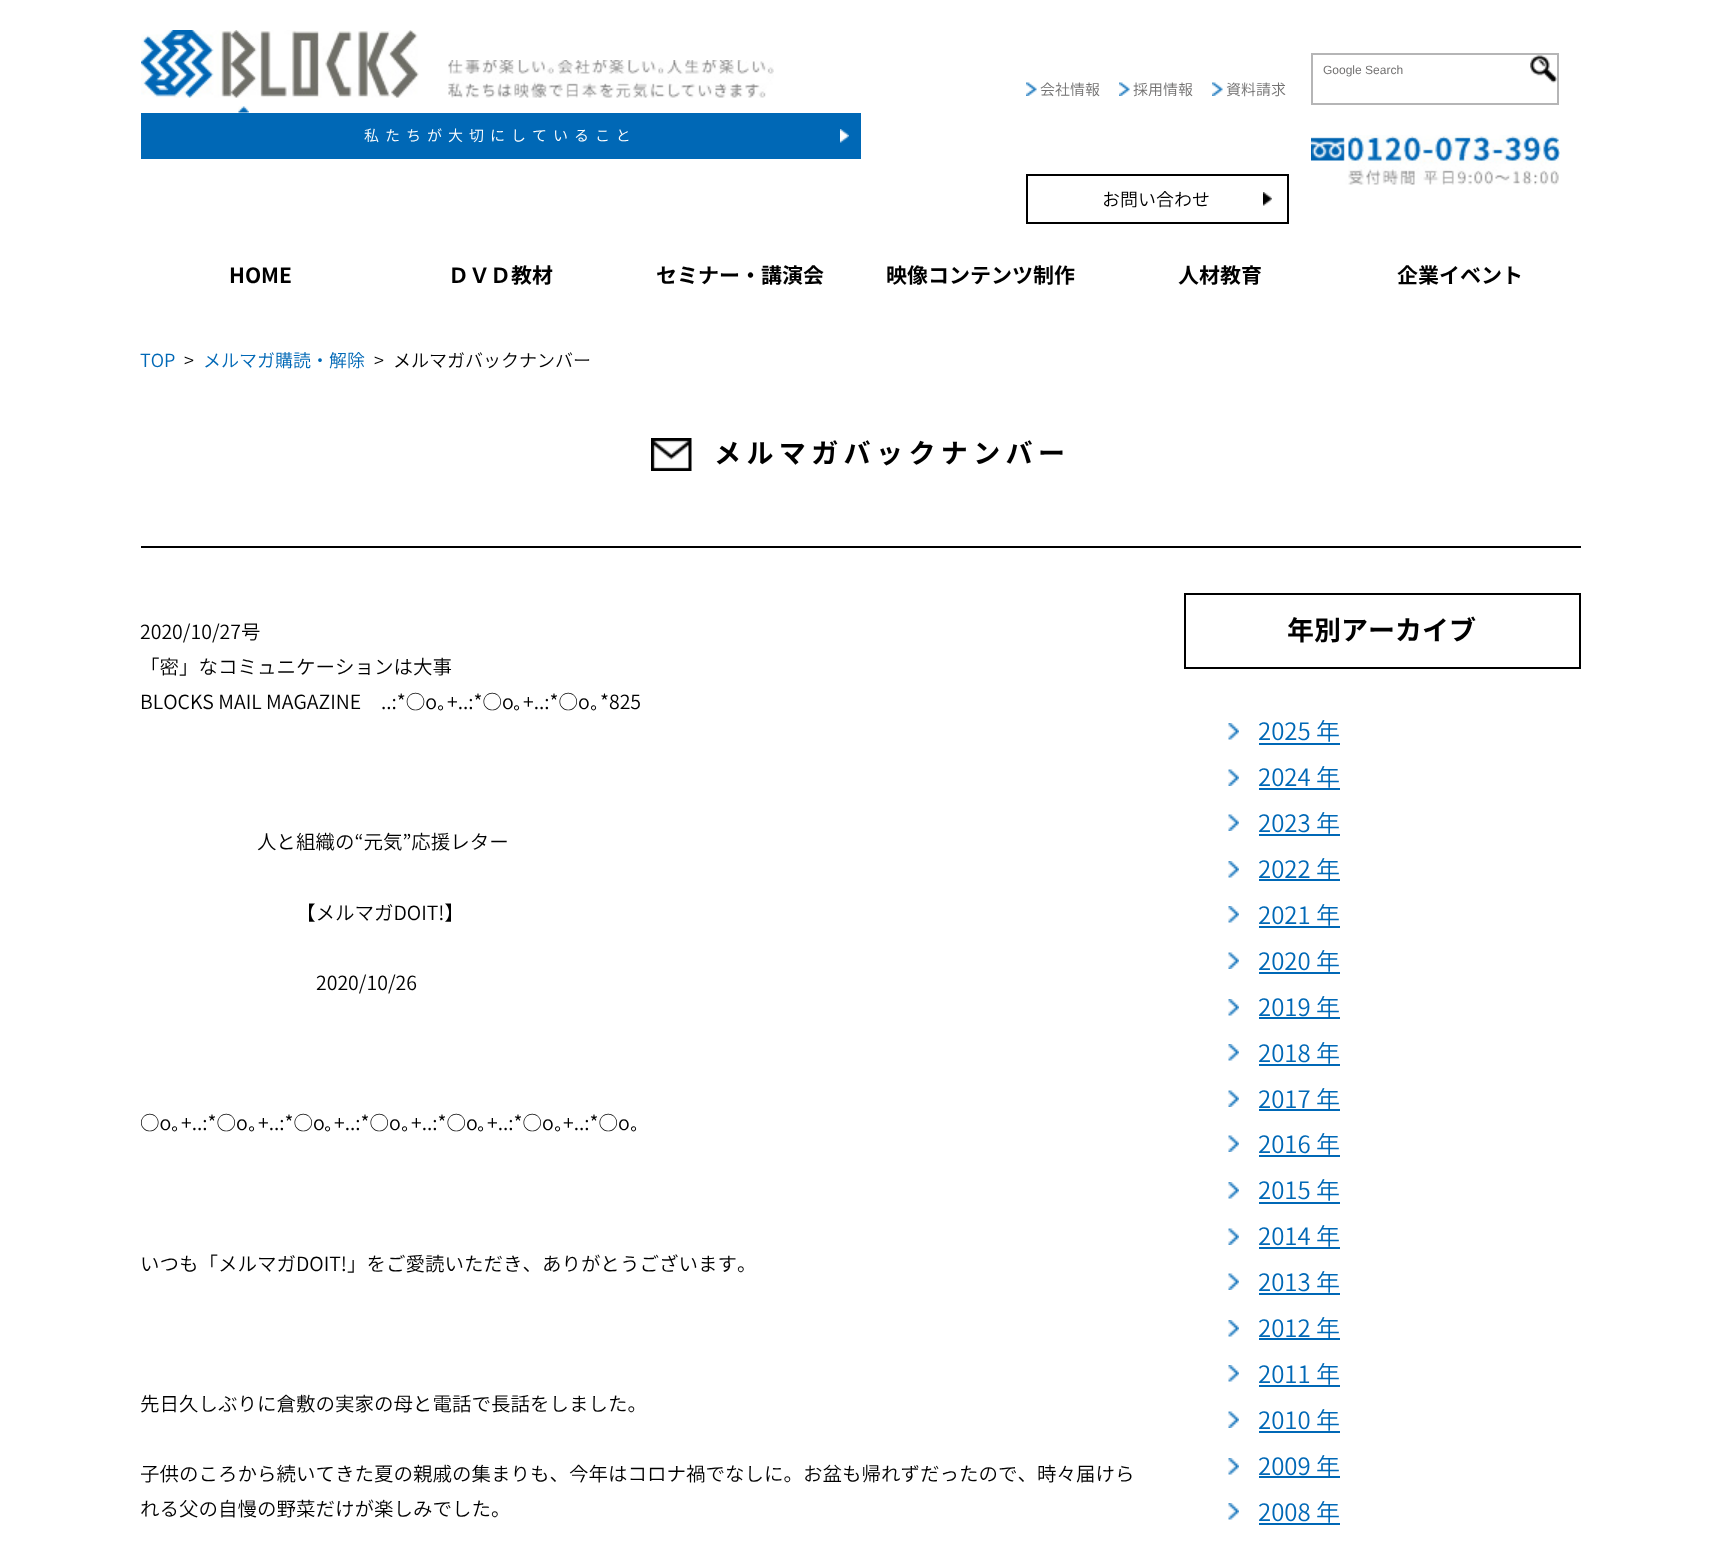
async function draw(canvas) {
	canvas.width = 1720;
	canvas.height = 1548;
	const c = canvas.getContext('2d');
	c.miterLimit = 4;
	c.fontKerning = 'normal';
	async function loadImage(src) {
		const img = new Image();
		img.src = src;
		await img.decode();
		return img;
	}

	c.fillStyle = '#fff';
	c.fillRect(0, 0, 1720, 1548);
	c.drawImage(await loadImage('img1.png'), 238, 106, 11, 7);
	c.drawImage(await loadImage('img2.png'), 141, 30, 278, 68);
	c.drawImage(await loadImage('img3.png'), 448, 60, 326, 38);
	c.fillStyle = '#0068b6';
	c.fillRect(141, 113, 720, 46);
	c.drawImage(await loadImage('img4.png'), 840, 129, 9, 14);
	c.letterSpacing = '6px';
	c.font = '300 15px Noto Sans CJK JP';
	c.fillStyle = '#fff';
	c.fillText('私たちが大切にしていること', 364, 141);
	c.strokeStyle = '#b5b5b6';
	c.lineWidth = 2;
	c.strokeRect(1312, 54, 246, 50);
	c.letterSpacing = '0px';
	c.font = '12px Liberation Sans';
	c.fillStyle = '#727171';
	c.fillText('Google Search', 1323, 74);
	c.drawImage(await loadImage('img5.png'), 1530, 55, 27, 28);
	c.drawImage(await loadImage('img6.png'), 1026, 82, 11, 14);
	c.font = '300 15px Noto Sans CJK JP';
	c.fillText('会社情報', 1040, 95);
	c.drawImage(await loadImage('img7.png'), 1119, 82, 11, 14);
	c.fillText('採用情報', 1133, 95);
	c.drawImage(await loadImage('img7.png'), 1212, 82, 11, 14);
	c.fillText('資料請求', 1226, 95);
	c.drawImage(await loadImage('img8.png'), 1311, 135, 249, 50);
	c.drawImage(await loadImage('img9.png'), 1263, 192, 9, 14);
	c.strokeStyle = '#000';
	c.strokeRect(1027, 175, 261, 48);
	c.font = '300 18px Noto Sans CJK JP';
	c.fillStyle = '#000';
	c.fillText('お問い合わせ', 1102, 206);
	c.font = 'bold 21px Noto Sans CJK JP';
	for (const [text, x, y] of [
		['HOME', 229, 283],
		['ＤＶＤ教材', 448, 283],
		['セミナー・講演会', 656, 283],
		['映像コンテンツ制作', 886, 283],
		['人材教育', 1178, 283],
		['企業イベント', 1397, 283],
	]) {
		c.fillText(text, x, y);
	}
	c.font = '300 18px Noto Sans CJK JP';
	c.fillStyle = '#0068b6';
	c.fillText('TOP', 140, 367);
	c.fillStyle = '#000';
	c.fillText('>', 184, 367);
	c.fillStyle = '#0068b6';
	c.fillText('メルマガ購読・解除', 203, 367);
	c.fillStyle = '#000';
	c.fillText('> メルマガバックナンバー', 374, 367);
	c.drawImage(await loadImage('img10.png'), 651, 438, 41, 33);
	c.letterSpacing = '5.4px';
	c.font = 'bold 27px Noto Sans CJK JP';
	c.fillText('メルマガバックナンバー', 714, 463);
	c.fillRect(141, 546, 1440, 2);
	c.letterSpacing = '0px';
	c.font = '300 19.5px Noto Sans CJK JP';
	for (const [text, x, y] of [
		['2020/10/27号', 140, 639],
		['「密」なコミュニケーションは大事', 140, 674],
		['BLOCKS MAIL MAGAZINE', 140, 709],
		['..:*○o', 381, 709],
	]) {
		c.fillText(text, x, y);
	}
	c.font = '19.5px IPAPGothic';
	c.fillText('｡', 437, 709);
	c.font = '300 19.5px Noto Sans CJK JP';
	c.fillText('+..:*○o', 447, 709);
	c.font = '19.5px IPAPGothic';
	c.fillText('｡', 513, 709);
	c.font = '300 19.5px Noto Sans CJK JP';
	c.fillText('+..:*○o', 523, 709);
	c.font = '19.5px IPAPGothic';
	c.fillText('｡', 590, 709);
	c.font = '300 19.5px Noto Sans CJK JP';
	for (const [text, x, y] of [
		['*825', 600, 709],
		['人と組織の“元気”応援レター', 257, 849],
		['【メルマガDOIT!】', 296, 920],
		['2020/10/26', 316, 990],
		['○o', 140, 1130],
	]) {
		c.fillText(text, x, y);
	}
	c.font = '19.5px IPAPGothic';
	c.fillText('｡', 171, 1130);
	c.font = '300 19.5px Noto Sans CJK JP';
	c.fillText('+..:*○o', 181, 1130);
	c.font = '19.5px IPAPGothic';
	c.fillText('｡', 248, 1130);
	c.font = '300 19.5px Noto Sans CJK JP';
	c.fillText('+..:*○o', 258, 1130);
	c.font = '19.5px IPAPGothic';
	c.fillText('｡', 324, 1130);
	c.font = '300 19.5px Noto Sans CJK JP';
	c.fillText('+..:*○o', 334, 1130);
	c.font = '19.5px IPAPGothic';
	c.fillText('｡', 401, 1130);
	c.font = '300 19.5px Noto Sans CJK JP';
	c.fillText('+..:*○o', 411, 1130);
	c.font = '19.5px IPAPGothic';
	c.fillText('｡', 477, 1130);
	c.font = '300 19.5px Noto Sans CJK JP';
	c.fillText('+..:*○o', 487, 1130);
	c.font = '19.5px IPAPGothic';
	c.fillText('｡', 554, 1130);
	c.font = '300 19.5px Noto Sans CJK JP';
	c.fillText('+..:*○o', 563, 1130);
	c.font = '19.5px IPAPGothic';
	c.fillText('｡', 630, 1130);
	c.font = '300 19.5px Noto Sans CJK JP';
	for (const [text, x, y] of [
		['いつも「メルマガDOIT!」をご愛読いただき、ありがとうございます。', 140, 1271],
		['先日久しぶりに倉敷の実家の母と電話で長話をしました。', 140, 1411],
		['子供のころから続いてきた夏の親戚の集まりも、今年はコロナ禍でなしに。お盆も帰れずだったので、時々届けら', 140, 1481],
		['れる父の自慢の野菜だけが楽しみでした。', 140, 1516],
	]) {
		c.fillText(text, x, y);
	}
	c.strokeRect(1185, 594, 395, 74);
	c.font = 'bold 27px Noto Sans CJK JP';
	c.fillText('年別アーカイブ', 1287, 640);
	c.drawImage(await loadImage('img11.png'), 1228, 723, 11, 17);
	c.font = '300 24px Noto Sans CJK JP';
	c.fillStyle = '#0068b6';
	c.fillText('2025 年', 1258, 740);
	c.fillRect(1259, 743, 81, 2);
	c.drawImage(await loadImage('img12.png'), 1228, 769, 11, 17);
	c.fillText('2024 年', 1258, 786);
	c.fillRect(1259, 788, 81, 2);
	c.drawImage(await loadImage('img12.png'), 1228, 814, 11, 17);
	c.fillText('2023 年', 1258, 832);
	c.fillRect(1259, 834, 81, 2);
	c.drawImage(await loadImage('img11.png'), 1228, 861, 11, 17);
	c.fillRect(1259, 879, 81, 2);
	c.fillText('2022 年', 1258, 878);
	c.drawImage(await loadImage('img11.png'), 1228, 906, 11, 17);
	c.fillText('2021 年', 1258, 924);
	c.fillRect(1259, 926, 81, 2);
	c.drawImage(await loadImage('img12.png'), 1228, 952, 11, 17);
	c.fillText('2020 年', 1258, 970);
	c.fillRect(1259, 972, 81, 2);
	c.drawImage(await loadImage('img11.png'), 1228, 999, 11, 17);
	c.fillRect(1259, 1017, 81, 2);
	c.fillText('2019 年', 1258, 1016);
	c.drawImage(await loadImage('img11.png'), 1228, 1044, 11, 17);
	c.fillText('2018 年', 1258, 1062);
	c.fillRect(1259, 1064, 81, 2);
	c.drawImage(await loadImage('img12.png'), 1228, 1090, 11, 17);
	c.fillRect(1259, 1109, 81, 2);
	c.fillText('2017 年', 1258, 1108);
	c.drawImage(await loadImage('img12.png'), 1228, 1135, 11, 17);
	c.fillText('2016 年', 1258, 1153);
	c.fillRect(1259, 1155, 81, 2);
	c.drawImage(await loadImage('img11.png'), 1228, 1182, 11, 17);
	c.fillText('2015 年', 1258, 1199);
	c.fillRect(1259, 1202, 81, 2);
	c.drawImage(await loadImage('img12.png'), 1228, 1228, 11, 17);
	c.fillText('2014 年', 1258, 1245);
	c.fillRect(1259, 1247, 81, 2);
	c.drawImage(await loadImage('img12.png'), 1228, 1273, 11, 17);
	c.fillText('2013 年', 1258, 1291);
	c.fillRect(1259, 1293, 81, 2);
	c.drawImage(await loadImage('img11.png'), 1228, 1320, 11, 17);
	c.fillRect(1259, 1338, 81, 2);
	c.fillText('2012 年', 1258, 1337);
	c.drawImage(await loadImage('img11.png'), 1228, 1365, 11, 17);
	c.fillText('2011 年', 1258, 1383);
	c.fillRect(1259, 1385, 81, 2);
	c.drawImage(await loadImage('img12.png'), 1228, 1411, 11, 17);
	c.fillText('2010 年', 1258, 1429);
	c.fillRect(1259, 1431, 81, 2);
	c.drawImage(await loadImage('img11.png'), 1228, 1458, 11, 17);
	c.fillRect(1259, 1476, 81, 2);
	c.fillText('2009 年', 1258, 1475);
	c.drawImage(await loadImage('img11.png'), 1228, 1503, 11, 17);
	c.fillText('2008 年', 1258, 1521);
	c.fillRect(1259, 1523, 81, 2);
}

draw(document.querySelector('canvas'));
